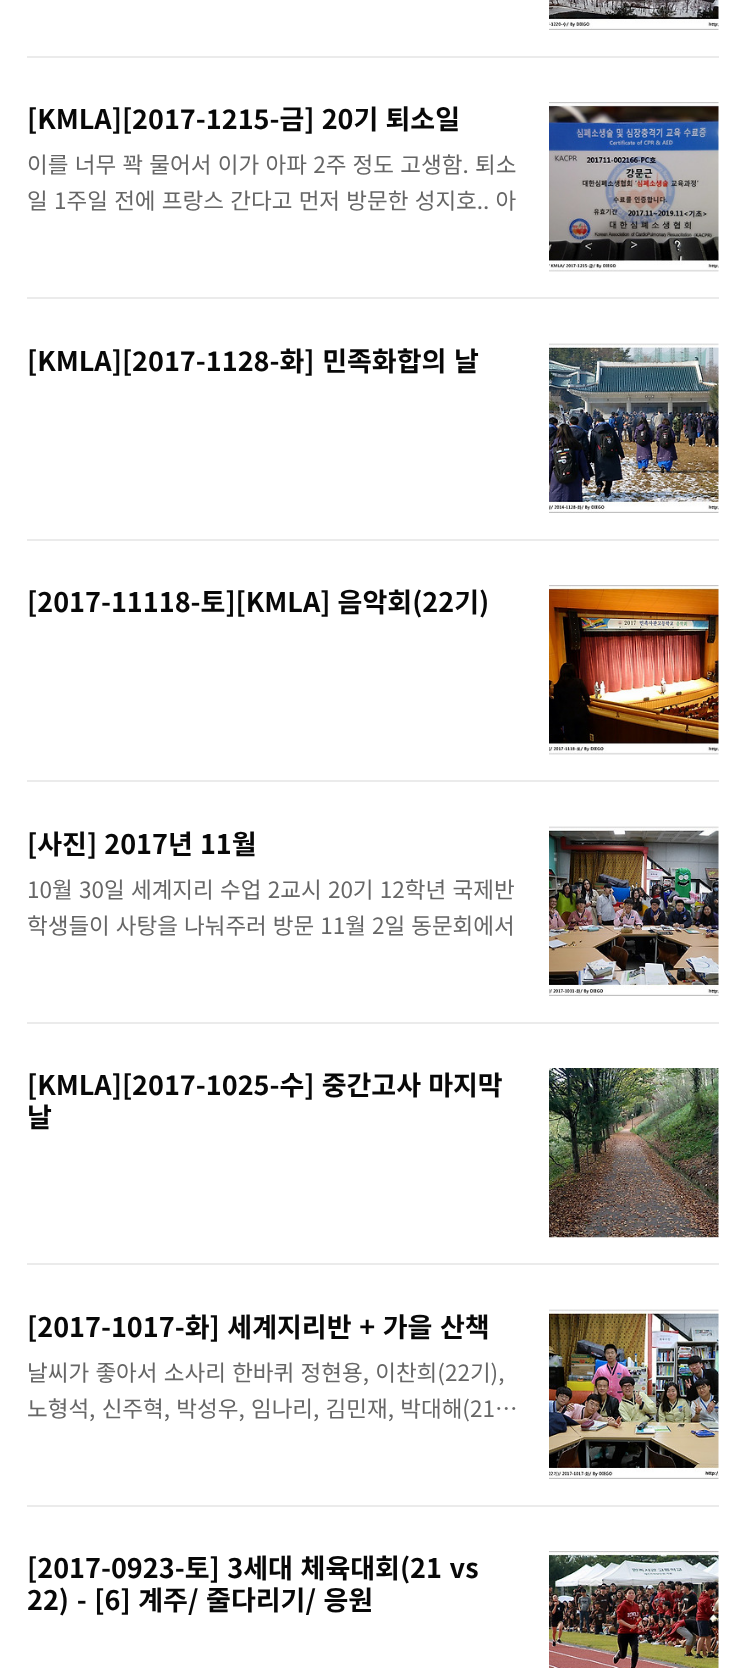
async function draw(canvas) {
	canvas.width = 745;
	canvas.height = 1668;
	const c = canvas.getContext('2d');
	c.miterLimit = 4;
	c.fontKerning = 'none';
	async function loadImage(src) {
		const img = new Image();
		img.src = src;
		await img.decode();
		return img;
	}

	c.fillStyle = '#fff';
	c.fillRect(0, 0, 745, 1668);
	c.fillStyle = '#ebebeb';
	c.fillRect(27, 56, 692, 2);
	c.drawImage(await loadImage('img1.png'), 549, 0, 170, 30);
	c.fillRect(27, 297, 692, 2);
	c.wordSpacing = '1px';
	c.font = 'bold 27px Noto Sans KR';
	c.fillStyle = '#080808';
	c.fillText('[KMLA][2017-1215-금] 20기 퇴소일', 27, 129);
	c.drawImage(await loadImage('img2.png'), 549, 102, 170, 170);
	c.wordSpacing = '1.25px';
	c.font = '22.5px Noto Sans KR';
	c.fillStyle = '#666';
	c.fillText('이를 너무 꽉 물어서 이가 아파 2주 정도 고생함. 퇴소', 27, 173);
	c.fillText('일 1주일 전에 프랑스 간다고 먼저 방문한 성지호.. 아', 27, 209);
	c.fillStyle = '#ebebeb';
	c.fillRect(27, 539, 692, 2);
	c.wordSpacing = '1.5px';
	c.font = 'bold 27px Noto Sans KR';
	c.fillStyle = '#080808';
	c.fillText('[KMLA][2017-1128-화] 민족화합의 날', 27, 371);
	c.drawImage(await loadImage('img3.png'), 549, 343, 170, 170);
	c.fillStyle = '#ebebeb';
	c.fillRect(27, 780, 692, 2);
	c.wordSpacing = '1px';
	c.fillStyle = '#080808';
	c.fillText('[2017-11118-토][KMLA] 음악회(22기)', 27, 612);
	c.drawImage(await loadImage('img4.png'), 549, 585, 170, 170);
	c.fillStyle = '#ebebeb';
	c.fillRect(27, 1022, 692, 2);
	c.fillStyle = '#080808';
	c.fillText('[사진] 2017년 11월', 27, 854);
	c.drawImage(await loadImage('img5.png'), 549, 826, 170, 170);
	c.wordSpacing = '1.25px';
	c.font = '22.5px Noto Sans KR';
	c.fillStyle = '#666';
	c.fillText('10월 30일 세계지리 수업 2교시 20기 12학년 국제반', 27, 898);
	c.wordSpacing = '1px';
	c.fillText('학생들이 사탕을 나눠주러 방문 11월 2일 동문회에서', 27, 934);
	c.fillStyle = '#ebebeb';
	c.fillRect(27, 1263, 692, 2);
	c.font = 'bold 27px Noto Sans KR';
	c.fillStyle = '#080808';
	c.fillText('[KMLA][2017-1025-수] 중간고사 마지막', 27, 1095);
	c.wordSpacing = '0px';
	c.fillText('날', 27, 1127);
	c.drawImage(await loadImage('img6.png'), 549, 1068, 170, 170);
	c.fillStyle = '#ebebeb';
	c.fillRect(27, 1505, 692, 2);
	c.wordSpacing = '1.5px';
	c.fillStyle = '#080808';
	c.fillText('[2017-1017-화] 세계지리반 + 가을 산책', 27, 1337);
	c.drawImage(await loadImage('img7.png'), 549, 1309, 170, 170);
	c.wordSpacing = '1.25px';
	c.font = '22.5px Noto Sans KR';
	c.fillStyle = '#666';
	c.fillText('날씨가 좋아서 소사리 한바퀴 정현용, 이찬희(22기),', 27, 1381);
	c.fillText('노형석, 신주혁, 박성우, 임나리, 김민재, 박대해(21…', 27, 1417);
	c.wordSpacing = '1.5px';
	c.font = 'bold 27px Noto Sans KR';
	c.fillStyle = '#080808';
	c.fillText('[2017-0923-토] 3세대 체육대회(21 vs', 27, 1578);
	c.fillText('22) - [6] 계주/ 줄다리기/ 응원', 27, 1610);
	c.drawImage(await loadImage('img8.png'), 549, 1551, 170, 117);
}

draw(document.querySelector('canvas'));
